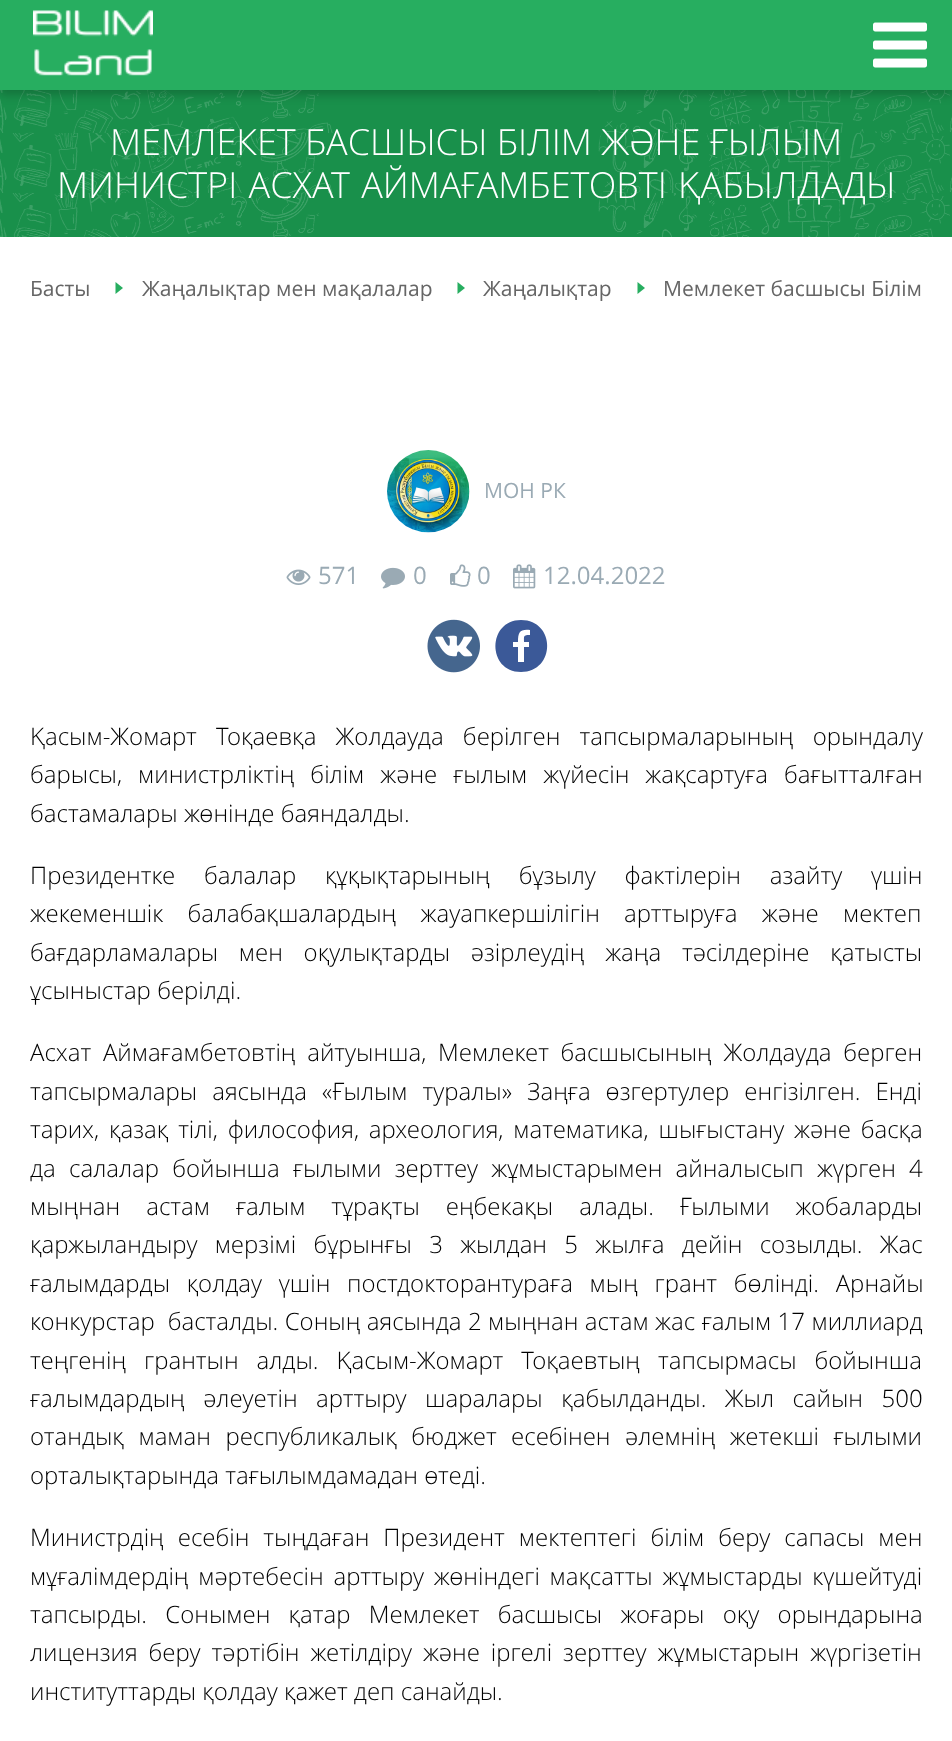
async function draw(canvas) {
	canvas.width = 952;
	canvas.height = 1741;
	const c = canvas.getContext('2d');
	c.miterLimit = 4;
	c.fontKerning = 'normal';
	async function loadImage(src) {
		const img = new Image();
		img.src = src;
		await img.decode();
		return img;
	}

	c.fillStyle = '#fff';
	c.fillRect(0, 0, 952, 1741);
	c.drawImage(await loadImage('img3.png'), 0, 90, 952, 147);
	c.fillStyle = '#00000033';
	c.filter = 'blur(5px)';
	c.beginPath();
	c.rect(0, 5, 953, 90);
	c.fill();
	c.filter = 'none';
	c.fillStyle = '#27ae60';
	c.fillRect(0, 0, 952, 90);
	c.drawImage(await loadImage('img1.png'), 33, 10, 120, 66);
	c.drawImage(await loadImage('img2.png'), 873, 22, 54, 46);
	c.font = '300 36px Open Sans';
	c.fillStyle = '#fff';
	c.fillText('МЕМЛЕКЕТ БАСШЫСЫ БІЛІМ ЖӘНЕ ҒЫЛЫМ', 110, 155);
	c.wordSpacing = '2px';
	c.fillText('МИНИСТРІ АСХАТ АЙМАҒАМБЕТОВТІ ҚАБЫЛДАДЫ', 57, 198);
	c.wordSpacing = '0px';
	c.font = '21px Open Sans';
	c.fillStyle = '#666';
	c.fillText('Басты', 30, 296);
	c.fillStyle = '#27ae60';
	c.beginPath();
	c.moveTo(115.5, 294);
	c.lineTo(115.5, 282);
	c.lineTo(123, 288);
	c.closePath();
	c.fill();
	c.fillStyle = '#666';
	c.fillText('Жаңалықтар мен мақалалар', 142, 296);
	c.fillStyle = '#27ae60';
	c.beginPath();
	c.moveTo(457.5, 294);
	c.lineTo(457.5, 282);
	c.lineTo(465, 288);
	c.closePath();
	c.fill();
	c.fillStyle = '#666';
	c.fillText('Жаңалықтар', 483, 296);
	c.fillStyle = '#27ae60';
	c.beginPath();
	c.moveTo(637.5, 294);
	c.lineTo(637.5, 282);
	c.lineTo(645, 288);
	c.closePath();
	c.fill();
	c.fillStyle = '#666';
	c.fillText('Мемлекет басшысы Білім', 663, 296);
	c.drawImage(await loadImage('img4.png'), 387, 450, 83, 83);
	c.fillStyle = '#9aaab4';
	c.fillText('МОН РК', 484, 498);
	c.drawImage(await loadImage('img5.png'), 286, 569, 25, 16);
	c.font = '24px Open Sans';
	c.fillText('571', 318, 584);
	c.drawImage(await loadImage('img6.png'), 381, 567, 24, 22);
	c.fillText('0', 413, 584);
	c.drawImage(await loadImage('img7.png'), 450, 564, 21, 23);
	c.fillText('0', 477, 584);
	c.drawImage(await loadImage('img8.png'), 513, 564, 23, 25);
	c.fillText('12.04.2022', 543, 584);
	c.drawImage(await loadImage('img9.png'), 427, 619, 53, 54);
	c.fillStyle = '#3b5998';
	c.beginPath();
	c.moveTo(521, 620);
	c.bezierCurveTo(556, 620, 556, 672, 521, 672);
	c.bezierCurveTo(487, 672, 487, 620, 521, 620);
	c.closePath();
	c.moveTo(524, 662);
	c.lineTo(524, 647);
	c.lineTo(529, 647);
	c.lineTo(529, 642);
	c.lineTo(524, 642);
	c.bezierCurveTo(524, 636, 523, 635, 530, 635);
	c.lineTo(530, 630);
	c.bezierCurveTo(520, 629, 518, 632, 518, 642);
	c.lineTo(513, 642);
	c.lineTo(513, 647);
	c.lineTo(518, 647);
	c.lineTo(518, 662);
	c.closePath();
	c.fill();
	c.wordSpacing = '13px';
	c.font = '300 24px Open Sans';
	c.fillStyle = '#000';
	c.fillText('Қасым-Жомарт Тоқаевқа Жолдауда берілген тапсырмаларының орындалу', 30, 745);
	c.wordSpacing = '9.75px';
	c.fillText('барысы, министрліктің білім және ғылым жүйесін жақсартуға бағытталған', 30, 783);
	c.wordSpacing = '0px';
	c.fillText('бастамалары жөнінде баяндалды.', 30, 822);
	c.wordSpacing = '22.5px';
	c.fillText('Президентке балалар құқықтарының бұзылу фактілерін азайту үшін', 30, 884);
	c.wordSpacing = '18px';
	c.fillText('жекеменшік балабақшалардың жауапкершілігін арттыруға және мектеп', 30, 922);
	c.wordSpacing = '14.5px';
	c.fillText('бағдарламалары мен оқулықтарды әзірлеудің жаңа тәсілдеріне қатысты', 30, 961);
	c.wordSpacing = '0px';
	c.fillText('ұсыныстар берілді.', 30, 999);
	c.wordSpacing = '5.5px';
	c.fillText('Асхат Аймағамбетовтің айтуынша, Мемлекет басшысының Жолдауда берген', 30, 1061);
	c.wordSpacing = '8.75px';
	c.fillText('тапсырмалары аясында «Ғылым туралы» Заңға өзгертулер енгізілген. Енді', 30, 1100);
	c.wordSpacing = '3.5px';
	c.fillText('тарих, қазақ тілі, философия, археология, математика, шығыстану және басқа', 30, 1138);
	c.wordSpacing = '7px';
	c.fillText('да салалар бойынша ғылыми зерттеу жұмыстарымен айналысып жүрген 4', 30, 1177);
	c.wordSpacing = '19.75px';
	c.fillText('мыңнан астам ғалым тұрақты еңбекақы алады. Ғылыми жобаларды', 30, 1215);
	c.wordSpacing = '11px';
	c.fillText('қаржыландыру мерзімі бұрынғы 3 жылдан 5 жылға дейін созылды. Жас', 30, 1253);
	c.wordSpacing = '10.5px';
	c.fillText('ғалымдарды қолдау үшін постдокторантураға мың грант бөлінді. Арнайы', 30, 1292);
	c.wordSpacing = '0.25px';
	c.fillText('конкурстар  басталды. Соның аясында 2 мыңнан астам жас ғалым 17 миллиард', 30, 1330);
	c.wordSpacing = '11.75px';
	c.fillText('теңгенің грантын алды. Қасым-Жомарт Тоқаевтың тапсырмасы бойынша', 30, 1369);
	c.wordSpacing = '12.25px';
	c.fillText('ғалымдардың әлеуетін арттыру шаралары қабылданды. Жыл сайын 500', 30, 1407);
	c.wordSpacing = '8.25px';
	c.fillText('отандық маман республикалық бюджет есебінен әлемнің жетекші ғылыми', 30, 1445);
	c.wordSpacing = '0px';
	c.fillText('орталықтарында тағылымдамадан өтеді.', 30, 1484);
	c.wordSpacing = '7.75px';
	c.fillText('Министрдің есебін тыңдаған Президент мектептегі білім беру сапасы мен', 30, 1546);
	c.wordSpacing = '3.5px';
	c.fillText('мұғалімдердің мәртебесін арттыру жөніндегі мақсатты жұмыстарды күшейтуді', 30, 1585);
	c.wordSpacing = '12px';
	c.fillText('тапсырды. Сонымен қатар Мемлекет басшысы жоғары оқу орындарына', 30, 1623);
	c.wordSpacing = '4.75px';
	c.fillText('лицензия беру тәртібін жетілдіру және іргелі зерттеу жұмыстарын жүргізетін', 30, 1661);
	c.wordSpacing = '0px';
	c.fillText('институттарды қолдау қажет деп санайды.', 30, 1700);
}

draw(document.querySelector('canvas'));
